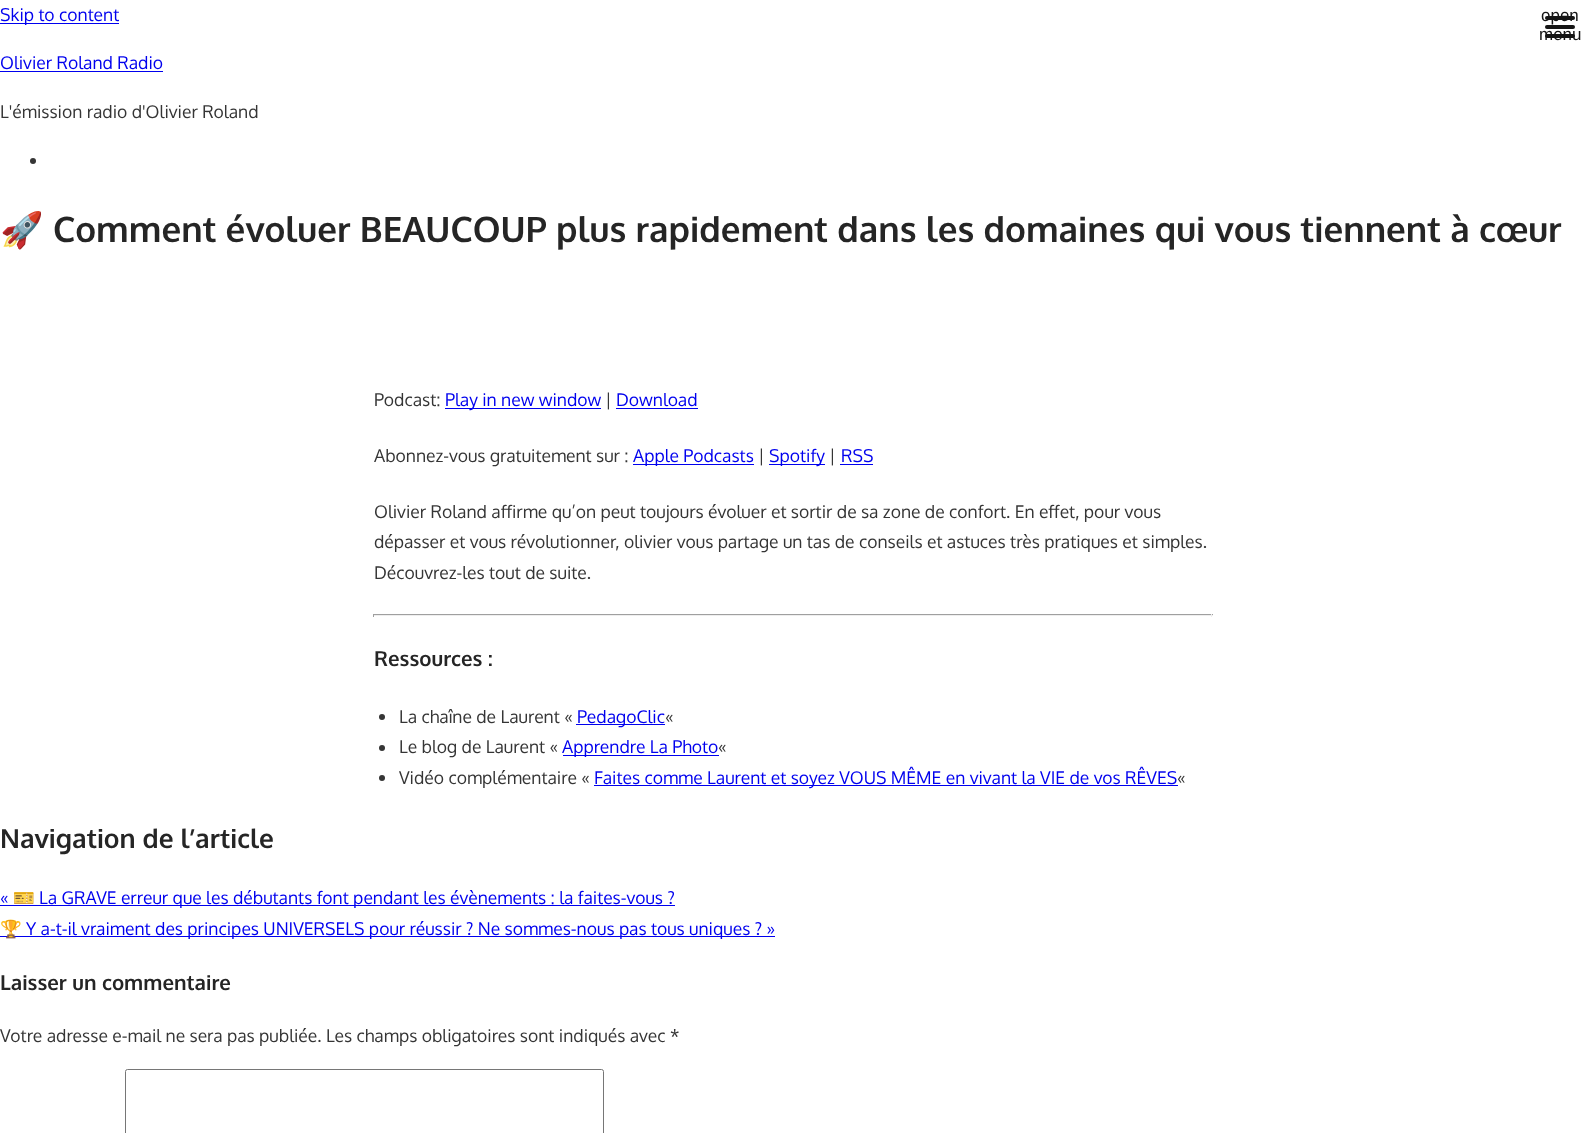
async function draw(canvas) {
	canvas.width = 1585;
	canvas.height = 1133;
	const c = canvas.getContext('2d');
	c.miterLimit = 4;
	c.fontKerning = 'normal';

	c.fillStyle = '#fff';
	c.fillRect(0, 0, 1585, 1133);
	c.fillStyle = '#00e';
	c.fillRect(0, 23, 119, 1);
	c.font = '17.5px Oxygen';
	c.fillText('Skip to content', 0, 21);
	c.font = '17px Liberation Sans';
	c.fillStyle = '#151515';
	c.fillText('open', 1541, 21);
	c.beginPath();
	c.roundRect(1545, 25, 30, 4, 2);
	c.fill();
	c.beginPath();
	c.roundRect(1545, 16, 30, 4, 2);
	c.fill();
	c.beginPath();
	c.roundRect(1545, 34, 30, 4, 2);
	c.fill();
	c.fillText('menu', 1539, 40);
	c.font = '17.5px Oxygen';
	c.fillStyle = '#00e';
	c.fillText('Olivier Roland Radio', 0, 69);
	c.fillRect(0, 71, 163, 1);
	c.fillStyle = '#353535';
	c.fillText('L\'émission radio d\'Olivier Roland', 0, 118);
	c.beginPath();
	c.arc(33, 161, 3, 0, 2 * Math.PI);
	c.fill();
	c.font = 'bold 35px Noto Color Emoji';
	c.fillStyle = '#252525';
	c.fillText('🚀', 0, 242);
	c.font = 'bold 35px Oxygen';
	c.fillText('Comment évoluer BEAUCOUP plus rapidement dans les domaines qui vous tiennent à cœur', 53, 242);
	c.font = '17.5px Oxygen';
	c.fillStyle = '#353535';
	c.fillText('Podcast:', 374, 406);
	c.fillStyle = '#00e';
	c.fillRect(445, 408, 156, 1);
	c.fillText('Play in new window', 445, 406);
	c.fillStyle = '#353535';
	c.fillText('|', 605, 406);
	c.fillStyle = '#00e';
	c.fillText('Download', 616, 406);
	c.fillRect(616, 408, 82, 1);
	c.fillStyle = '#353535';
	c.fillText('Abonnez-vous gratuitement sur :', 374, 462);
	c.fillStyle = '#00e';
	c.fillRect(633, 464, 121, 1);
	c.fillText('Apple Podcasts', 633, 462);
	c.fillStyle = '#353535';
	c.fillText('|', 758, 462);
	c.fillStyle = '#00e';
	c.fillRect(769, 464, 56, 1);
	c.fillText('Spotify', 769, 462);
	c.fillStyle = '#353535';
	c.fillText('|', 829, 462);
	c.fillStyle = '#00e';
	c.fillText('RSS', 841, 462);
	c.fillRect(840, 464, 33, 1);
	c.fillStyle = '#353535';
	for (const [text, x, y] of [
		['Olivier Roland affirme qu’on peut toujours évoluer et sortir de sa zone de confort. En effet, pour vous', 374, 518],
		['dépasser et vous révolutionner, olivier vous partage un tas de conseils et astuces très pratiques et simples.', 374, 548],
		['Découvrez-les tout de suite.', 374, 579],
	]) {
		c.fillText(text, x, y);
	}
	for (const [x, y, w, h, color] of [
		[373, 614, 840, 1, '#9f9f9f'],
		[1211, 614, 1, 3, '#eee'],
		[373, 615, 840, 1, '#eee'],
		[373, 614, 1, 3, '#9f9f9f'],
	]) {
		c.fillStyle = color;
		c.fillRect(x, y, w, h);
	}
	c.font = 'bold 20.5px Oxygen';
	c.fillStyle = '#252525';
	c.fillText('Ressources :', 374, 666);
	c.fillStyle = '#353535';
	c.beginPath();
	c.arc(382, 717, 3, 0, 2 * Math.PI);
	c.fill();
	c.font = '17.5px Oxygen';
	c.fillText('La chaîne de Laurent «', 399, 723);
	c.fillStyle = '#00e';
	c.fillRect(576, 724, 89, 1);
	c.fillText('PedagoClic', 577, 723);
	c.fillStyle = '#353535';
	c.fillText('«', 665, 723);
	c.beginPath();
	c.arc(382, 748, 3, 0, 2 * Math.PI);
	c.fill();
	c.fillText('Le blog de Laurent «', 399, 753);
	c.fillStyle = '#00e';
	c.fillRect(563, 755, 156, 1);
	c.fillText('Apprendre La Photo', 562, 753);
	c.fillStyle = '#353535';
	c.fillText('«', 718, 753);
	c.beginPath();
	c.arc(382, 778, 3, 0, 2 * Math.PI);
	c.fill();
	c.fillText('Vidéo complémentaire «', 399, 784);
	c.fillStyle = '#00e';
	c.fillRect(594, 785, 584, 1);
	c.fillText('Faites comme Laurent et soyez VOUS MÊME en vivant la VIE de vos RÊVES', 594, 784);
	c.fillStyle = '#353535';
	c.fillText('«', 1177, 784);
	c.font = 'bold 26.25px Oxygen';
	c.fillStyle = '#252525';
	c.fillText('Navigation de l’article', 0, 848);
	c.font = '17.5px Oxygen';
	c.fillStyle = '#00e';
	c.fillText('«', 0, 904);
	c.fillRect(0, 905, 675, 1);
	c.font = '17.5px Noto Color Emoji';
	c.fillText('🎫', 13, 904);
	c.font = '17.5px Oxygen';
	c.fillText('La GRAVE erreur que les débutants font pendant les évènements : la faites-vous ?', 39, 904);
	c.fillRect(0, 936, 775, 1);
	c.font = '17.5px Noto Color Emoji';
	c.fillText('🏆', 0, 935);
	c.font = '17.5px Oxygen';
	c.fillText('Y a-t-il vraiment des principes UNIVERSELS pour réussir ? Ne sommes-nous pas tous uniques ? »', 26, 935);
	c.font = 'bold 20.5px Oxygen';
	c.fillStyle = '#252525';
	c.fillText('Laisser un commentaire', 0, 990);
	c.font = '17.5px Oxygen';
	c.fillStyle = '#353535';
	c.fillText('Votre adresse e-mail ne sera pas publiée. Les champs obligatoires sont indiqués avec *', 0, 1042);
	c.beginPath();
	c.roundRect(125.5, 1069.5, 478, 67, 2);
	c.strokeStyle = '#767676';
	c.stroke();
}

draw(document.querySelector('canvas'));
